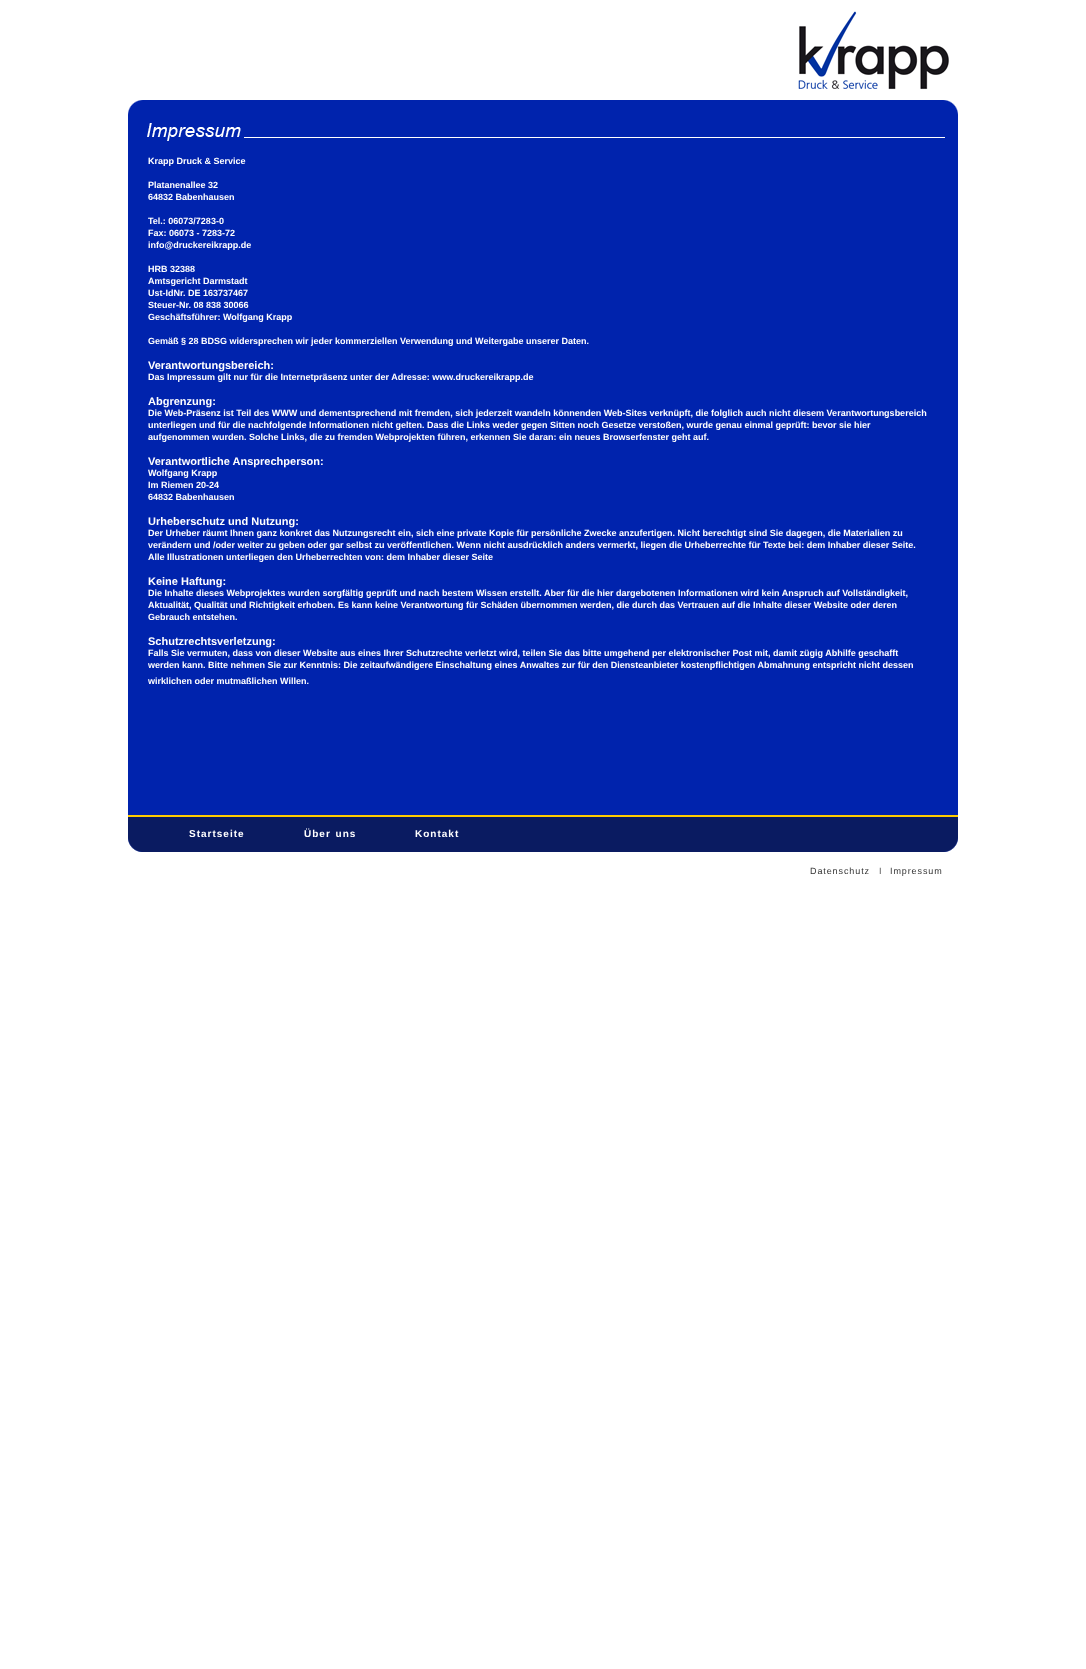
async function draw(canvas) {
	canvas.width = 1086;
	canvas.height = 1669;
	const c = canvas.getContext('2d');
	c.miterLimit = 4;
	c.fontKerning = 'normal';
	async function loadImage(src) {
		const img = new Image();
		img.src = src;
		await img.decode();
		return img;
	}

	c.fillStyle = '#fff';
	c.fillRect(0, 0, 1086, 1669);
	c.drawImage(await loadImage('img1.png'), 798, 11, 151, 79);
	c.fillStyle = '#0023ad';
	c.fillRect(128, 100, 830, 715);
	c.drawImage(await loadImage('img2.png'), 128, 100, 15, 15);
	c.drawImage(await loadImage('img3.png'), 943, 100, 15, 15);
	c.drawImage(await loadImage('img4.png'), 144, 123, 100, 18);
	c.fillStyle = '#fff';
	c.fillRect(244, 137, 701, 1);
	c.font = 'bold 9px Liberation Sans';
	for (const [text, x, y] of [
		['Krapp Druck & Service', 148, 164],
		['Platanenallee 32', 148, 188],
		['64832 Babenhausen', 148, 200],
		['Tel.: 06073/7283-0', 148, 224],
		['Fax: 06073 - 7283-72', 148, 236],
		['info@druckereikrapp.de', 148, 248],
		['HRB 32388', 148, 272],
		['Amtsgericht Darmstadt', 148, 284],
		['Ust-IdNr. DE 163737467', 148, 296],
		['Steuer-Nr. 08 838 30066', 148, 308],
		['Geschäftsführer: Wolfgang Krapp', 148, 320],
		['Gemäß § 28 BDSG widersprechen wir jeder kommerziellen Verwendung und Weitergabe unserer Daten.', 148, 344],
	]) {
		c.fillText(text, x, y);
	}
	c.font = 'bold 11px Liberation Sans';
	c.fillText('Verantwortungsbereich:', 148, 369);
	c.font = 'bold 9px Liberation Sans';
	c.fillText('Das Impressum gilt nur für die Internetpräsenz unter der Adresse: www.druckereikrapp.de', 148, 380);
	c.font = 'bold 11px Liberation Sans';
	c.fillText('Abgrenzung:', 148, 405);
	c.font = 'bold 9px Liberation Sans';
	for (const [text, x, y] of [
		['Die Web-Präsenz ist Teil des WWW und dementsprechend mit fremden, sich jederzeit wandeln könnenden Web-Sites verknüpft, die folglich auch nicht diesem Verantwortungsbereich', 148, 416],
		['unterliegen und für die nachfolgende Informationen nicht gelten. Dass die Links weder gegen Sitten noch Gesetze verstoßen, wurde genau einmal geprüft: bevor sie hier', 148, 428],
		['aufgenommen wurden. Solche Links, die zu fremden Webprojekten führen, erkennen Sie daran: ein neues Browserfenster geht auf.', 148, 440],
	]) {
		c.fillText(text, x, y);
	}
	c.font = 'bold 11px Liberation Sans';
	c.fillText('Verantwortliche Ansprechperson:', 148, 465);
	c.font = 'bold 9px Liberation Sans';
	for (const [text, x, y] of [
		['Wolfgang Krapp', 148, 476],
		['Im Riemen 20-24', 148, 488],
		['64832 Babenhausen', 148, 500],
	]) {
		c.fillText(text, x, y);
	}
	c.font = 'bold 11px Liberation Sans';
	c.fillText('Urheberschutz und Nutzung:', 148, 525);
	c.font = 'bold 9px Liberation Sans';
	for (const [text, x, y] of [
		['Der Urheber räumt Ihnen ganz konkret das Nutzungsrecht ein, sich eine private Kopie für persönliche Zwecke anzufertigen. Nicht berechtigt sind Sie dagegen, die Materialien zu', 148, 536],
		['verändern und /oder weiter zu geben oder gar selbst zu veröffentlichen. Wenn nicht ausdrücklich anders vermerkt, liegen die Urheberrechte für Texte bei: dem Inhaber dieser Seite.', 148, 548],
		['Alle Illustrationen unterliegen den Urheberrechten von: dem Inhaber dieser Seite', 148, 560],
	]) {
		c.fillText(text, x, y);
	}
	c.font = 'bold 11px Liberation Sans';
	c.fillText('Keine Haftung:', 148, 585);
	c.font = 'bold 9px Liberation Sans';
	for (const [text, x, y] of [
		['Die Inhalte dieses Webprojektes wurden sorgfältig geprüft und nach bestem Wissen erstellt. Aber für die hier dargebotenen Informationen wird kein Anspruch auf Vollständigkeit,', 148, 596],
		['Aktualität, Qualität und Richtigkeit erhoben. Es kann keine Verantwortung für Schäden übernommen werden, die durch das Vertrauen auf die Inhalte dieser Website oder deren', 148, 608],
		['Gebrauch entstehen.', 148, 620],
	]) {
		c.fillText(text, x, y);
	}
	c.font = 'bold 11px Liberation Sans';
	c.fillText('Schutzrechtsverletzung:', 148, 645);
	c.font = 'bold 9px Liberation Sans';
	for (const [text, x, y] of [
		['Falls Sie vermuten, dass von dieser Website aus eines Ihrer Schutzrechte verletzt wird, teilen Sie das bitte umgehend per elektronischer Post mit, damit zügig Abhilfe geschafft', 148, 656],
		['werden kann. Bitte nehmen Sie zur Kenntnis: Die zeitaufwändigere Einschaltung eines Anwaltes zur für den Diensteanbieter kostenpflichtigen Abmahnung entspricht nicht dessen', 148, 668],
		['wirklichen oder mutmaßlichen Willen.', 148, 684],
	]) {
		c.fillText(text, x, y);
	}
	c.fillStyle = '#0a1b61';
	c.fillRect(128, 817, 830, 35);
	c.fillStyle = '#fc0';
	c.fillRect(128, 815, 830, 2);
	c.drawImage(await loadImage('img5.png'), 128, 837, 15, 15);
	c.drawImage(await loadImage('img6.png'), 943, 837, 15, 15);
	c.letterSpacing = '1px';
	c.font = 'bold 10px Liberation Sans';
	c.fillStyle = '#fff';
	c.fillText('Startseite', 189, 837);
	c.wordSpacing = '1px';
	c.fillText('Über uns', 304, 837);
	c.wordSpacing = '0px';
	c.fillText('Kontakt', 415, 837);
	c.letterSpacing = '0.9px';
	c.font = '9px Liberation Sans';
	c.fillStyle = '#333';
	c.fillText('Datenschutz', 810, 874);
	c.letterSpacing = '0px';
	c.fillStyle = '#555';
	c.fillText('I', 879, 874);
	c.letterSpacing = '0.9px';
	c.fillStyle = '#333';
	c.fillText('Impressum', 890, 874);
}

draw(document.querySelector('canvas'));
